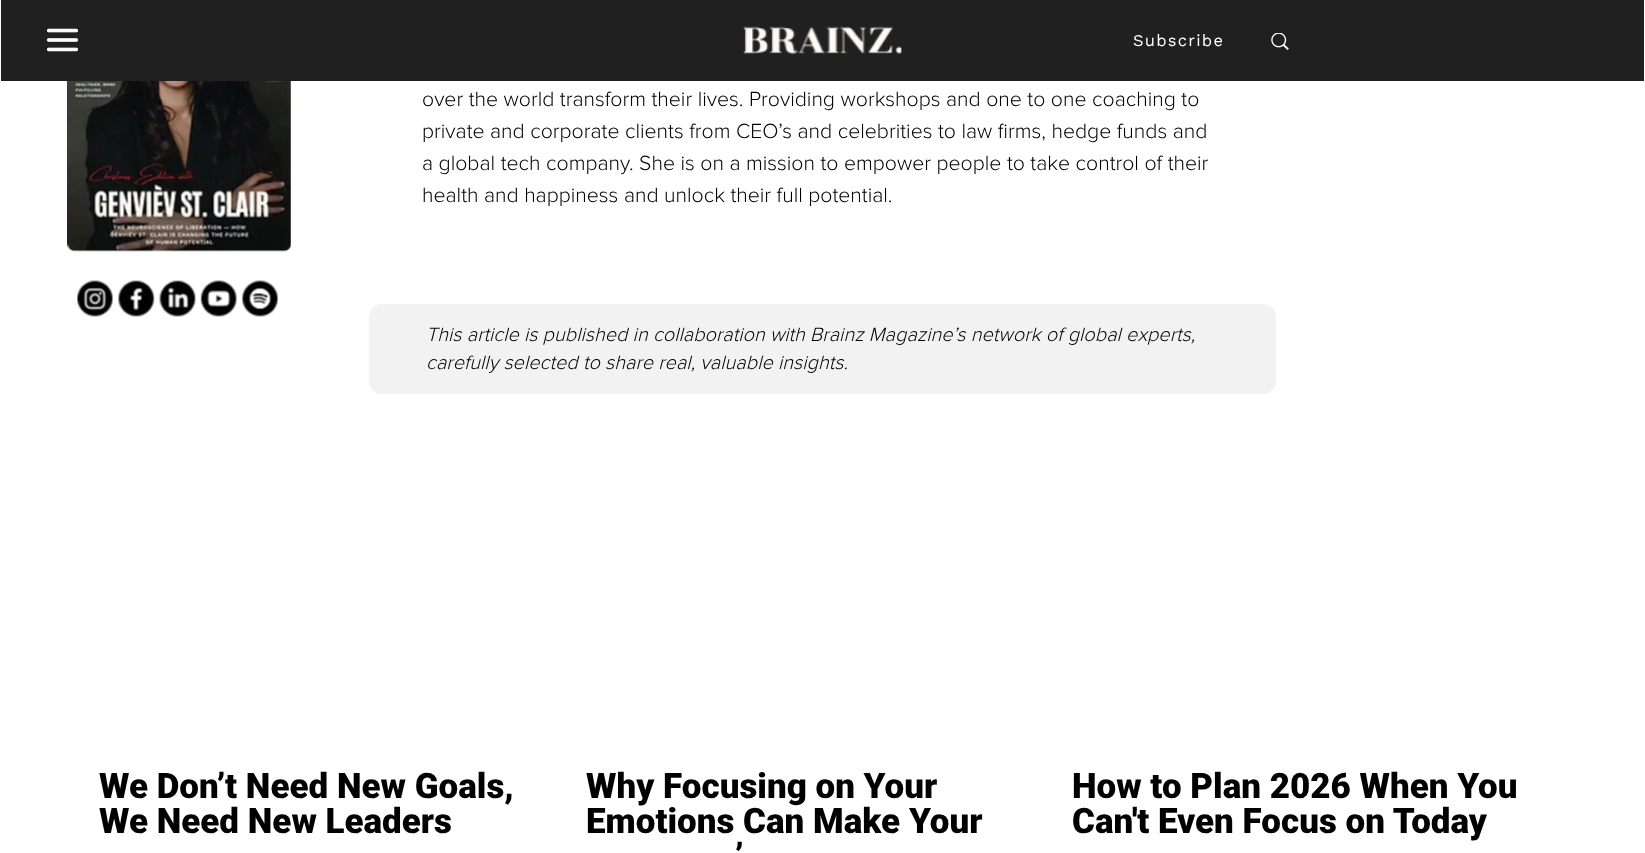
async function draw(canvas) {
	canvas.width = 1645;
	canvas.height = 853;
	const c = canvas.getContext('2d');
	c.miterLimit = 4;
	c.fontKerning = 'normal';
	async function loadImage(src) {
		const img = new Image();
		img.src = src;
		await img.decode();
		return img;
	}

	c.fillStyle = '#fff';
	c.fillRect(0, 0, 1645, 853);
	c.fillStyle = '#202020';
	c.fillRect(1, 0, 1643, 81);
	c.drawImage(await loadImage('img1.png'), 46, 28, 33, 24);
	c.drawImage(await loadImage('img2.png'), 743, 26, 159, 29);
	c.letterSpacing = '1.25px';
	c.font = '16.5px Work Sans';
	c.fillStyle = '#fff';
	c.fillText('Subscribe', 1133, 46);
	c.drawImage(await loadImage('img3.png'), 1271, 33, 18, 17);
	c.drawImage(await loadImage('img4.png'), 67, 81, 224, 171);
	c.drawImage(await loadImage('img5.png'), 77, 280, 36, 37);
	c.drawImage(await loadImage('img6.png'), 118, 280, 37, 37);
	c.drawImage(await loadImage('img7.png'), 159, 280, 37, 37);
	c.drawImage(await loadImage('img8.png'), 200, 280, 37, 37);
	c.drawImage(await loadImage('img9.png'), 242, 280, 36, 37);
	c.letterSpacing = '0px';
	c.font = '300 21.25px Proxima Nova';
	c.fillStyle = '#000';
	for (const [text, x, y] of [
		['over the world transform their lives. Providing workshops and one to one coaching to', 422, 106],
		['private and corporate clients from CEO’s and celebrities to law firms, hedge funds and', 422, 138],
		['a global tech company. She is on a mission to empower people to take control of their', 422, 170],
		['health and happiness and unlock their full potential.', 422, 202],
	]) {
		c.fillText(text, x, y);
	}
	c.fillStyle = '#f2f2f2';
	c.beginPath();
	c.roundRect(369, 304, 907, 90, 13);
	c.fill();
	c.font = 'italic 300 20px Proxima Nova';
	c.fillStyle = '#000';
	c.fillText('This article is published in collaboration with Brainz Magazine’s network of global experts,', 426, 341);
	c.fillText('carefully selected to share real, valuable insights.', 426, 369);
	c.font = '900 35px Roboto';
	for (const [text, x, y] of [
		['We Don’t Need New Goals,', 99, 798],
		['We Need New Leaders', 99, 833],
		['Why Focusing on Your', 586, 798],
		['Emotions Can Make Your', 586, 833],
		['’', 735, 868],
		['How to Plan 2026 When You', 1072, 798],
		['Can\'t Even Focus on Today', 1072, 833],
	]) {
		c.fillText(text, x, y);
	}
}

draw(document.querySelector('canvas'));
